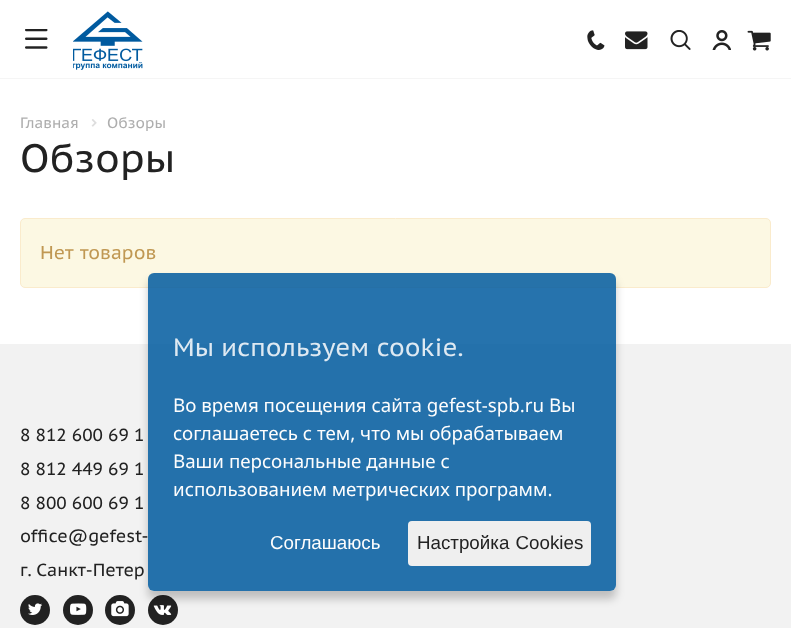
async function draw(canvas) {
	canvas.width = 791;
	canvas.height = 628;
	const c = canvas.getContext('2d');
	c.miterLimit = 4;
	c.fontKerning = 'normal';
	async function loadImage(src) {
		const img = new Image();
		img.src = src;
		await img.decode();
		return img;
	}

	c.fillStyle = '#fff';
	c.fillRect(0, 0, 791, 628);
	c.fillStyle = '#f5f5f5';
	c.fillRect(0, 78, 791, 1);
	c.drawImage(await loadImage('img1.png'), 25, 29, 23, 20);
	c.drawImage(await loadImage('img2.png'), 73, 11, 70, 59);
	c.drawImage(await loadImage('img3.png'), 587, 30, 18, 20);
	c.drawImage(await loadImage('img4.png'), 625, 31, 23, 19);
	c.drawImage(await loadImage('img5.png'), 670, 30, 21, 20);
	c.drawImage(await loadImage('img6.png'), 712, 30, 19, 20);
	c.drawImage(await loadImage('img7.png'), 747, 30, 24, 21);
	c.font = '15px PT Sans Caption';
	c.fillStyle = '#aeaeae';
	c.fillText('Главная', 20, 128);
	c.drawImage(await loadImage('img8.png'), 91, 119, 6, 8);
	c.fillText('Обзоры', 107, 128);
	c.font = '39.5px PT Sans Caption';
	c.fillStyle = '#222';
	c.fillText('Обзоры', 20, 172);
	c.fillStyle = '#fcf8e3';
	c.beginPath();
	c.roundRect(20.5, 218.5, 750, 69, 4.5);
	c.fill();
	c.strokeStyle = '#faebcc';
	c.stroke();
	c.wordSpacing = '1px';
	c.font = '18.75px PT Sans Caption';
	c.fillStyle = '#c09853';
	c.fillText('Нет товаров', 40, 259);
	c.fillStyle = '#f2f2f2';
	c.fillRect(0, 344, 791, 284);
	c.wordSpacing = '0px';
	c.font = '17.5px PT Sans Caption';
	c.fillStyle = '#222';
	for (const [text, x, y] of [
		['8 812 600 69 1', 20, 441],
		['8 812 449 69 1', 20, 475],
		['8 800 600 69 1', 20, 509],
		['office@gefest-', 20, 542],
		['г. Санкт-Петер', 20, 576],
	]) {
		c.fillText(text, x, y);
	}
	c.beginPath();
	c.arc(35, 610, 15, 0, 2 * Math.PI);
	c.fill();
	c.drawImage(await loadImage('img9.png'), 28, 603, 14, 12);
	c.beginPath();
	c.arc(78, 610, 15, 0, 2 * Math.PI);
	c.fill();
	c.drawImage(await loadImage('img10.png'), 70, 603, 17, 12);
	c.beginPath();
	c.arc(120, 610, 15, 0, 2 * Math.PI);
	c.fill();
	c.drawImage(await loadImage('img11.png'), 111, 601, 18, 16);
	c.beginPath();
	c.arc(163, 610, 15, 0, 2 * Math.PI);
	c.fill();
	c.drawImage(await loadImage('img12.png'), 153, 605, 19, 10);
	c.save();
	c.beginPath();
	c.moveTo(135, 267);
	c.lineTo(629, 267);
	c.lineTo(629, 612);
	c.lineTo(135, 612);
	c.closePath();
	c.moveTo(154, 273);
	c.lineTo(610, 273);
	c.bezierCurveTo(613.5, 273, 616, 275.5, 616, 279);
	c.lineTo(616, 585);
	c.bezierCurveTo(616, 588.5, 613.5, 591, 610, 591);
	c.lineTo(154, 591);
	c.bezierCurveTo(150.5, 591, 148, 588.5, 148, 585);
	c.lineTo(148, 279);
	c.bezierCurveTo(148, 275.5, 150.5, 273, 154, 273);
	c.closePath();
	c.clip('evenodd');
	c.fillStyle = '#00000036';
	c.filter = 'blur(4px)';
	c.beginPath();
	c.roundRect(148, 280, 468, 319, 6);
	c.fill();
	c.filter = 'none';
	c.restore();
	c.fillStyle = '#005a9fd9';
	c.beginPath();
	c.roundRect(148, 273, 468, 318, 6);
	c.fill();
	c.font = '25px PT Sans Caption';
	c.fillStyle = '#dee9f2';
	c.fillText('Мы используем cookie.', 173, 356);
	c.font = '18.75px Noto Sans';
	c.fillStyle = '#fdfdfd';
	for (const [text, x, y] of [
		['Во время посещения сайта gefest-spb.ru Вы', 173, 412],
		['соглашаетесь с тем, что мы обрабатываем', 173, 440],
		['Ваши персональные данные с', 173, 468],
		['использованием метрических программ.', 173, 496],
	]) {
		c.fillText(text, x, y);
	}
	c.font = '18.75px Liberation Sans';
	c.fillText('Соглашаюсь', 270, 549);
	c.fillStyle = '#efefef';
	c.beginPath();
	c.roundRect(408, 521, 183, 45, 4);
	c.fill();
	c.wordSpacing = '1px';
	c.fillStyle = '#222';
	c.fillText('Настройка Cookies', 417, 549);
}

draw(document.querySelector('canvas'));
